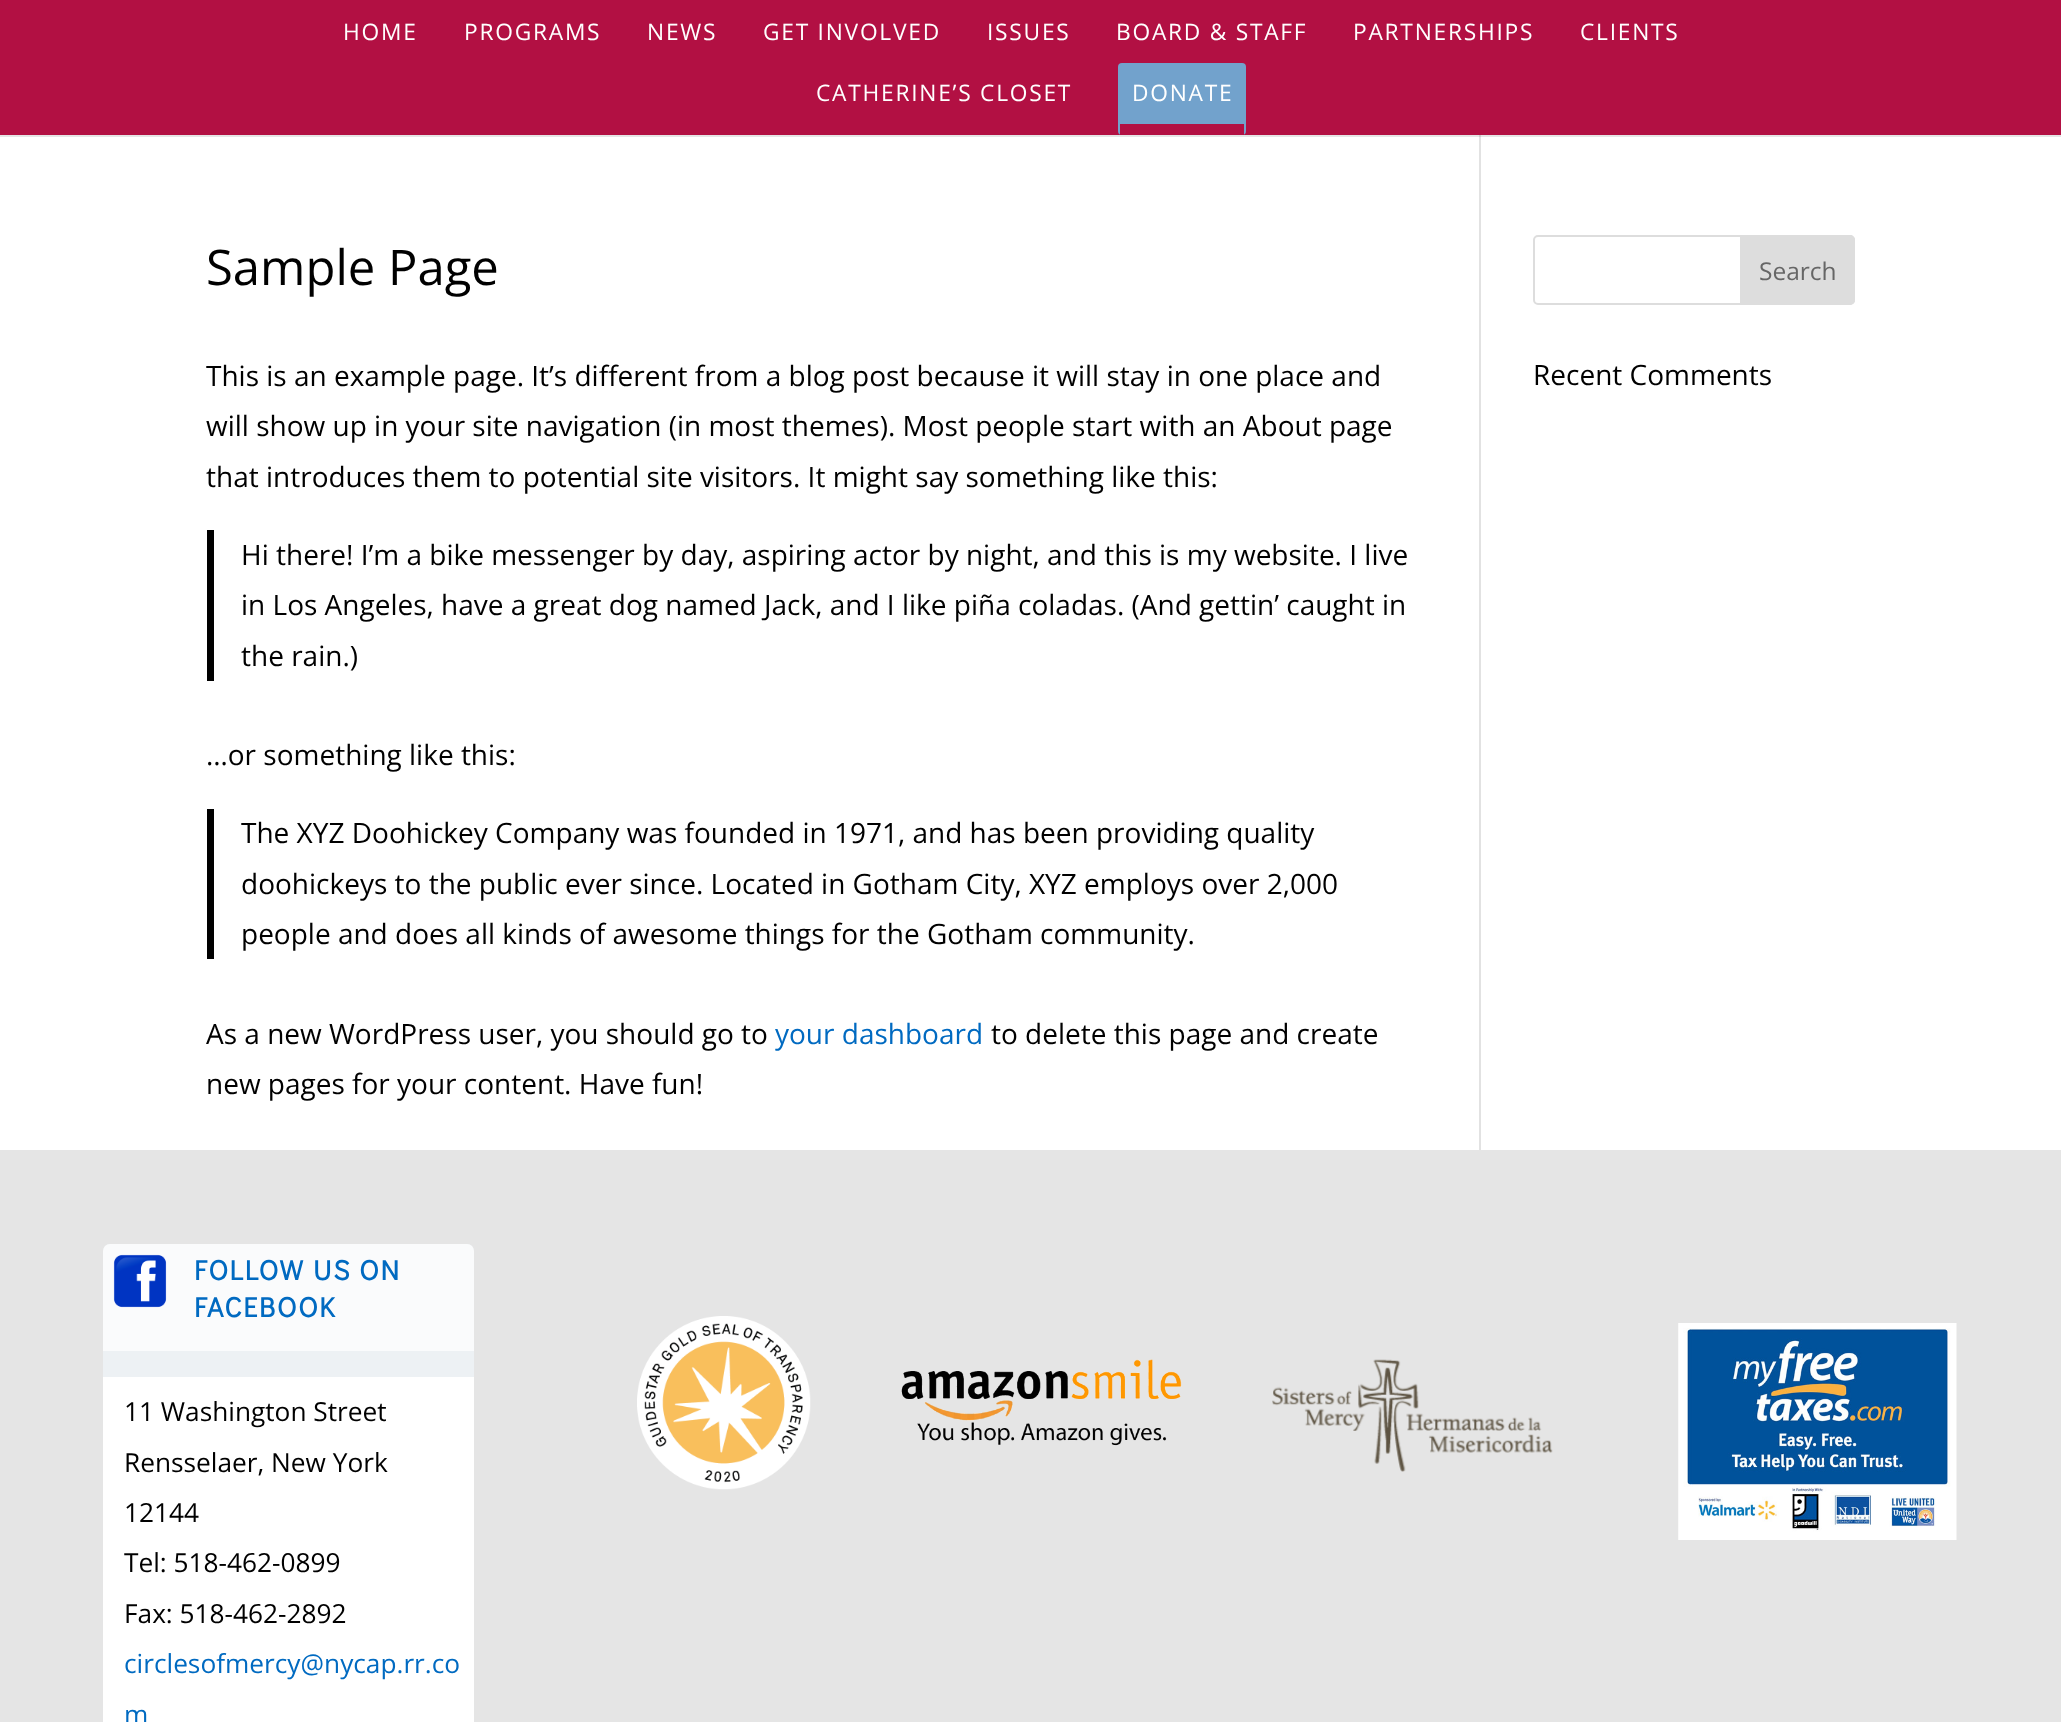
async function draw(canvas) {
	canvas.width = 2061;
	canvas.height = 1722;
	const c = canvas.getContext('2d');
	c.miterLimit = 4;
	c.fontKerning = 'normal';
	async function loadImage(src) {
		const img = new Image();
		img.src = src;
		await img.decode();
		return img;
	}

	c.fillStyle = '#fff';
	c.fillRect(0, 0, 2061, 1722);
	c.fillStyle = '#e2e2e2';
	c.fillRect(1479, 133, 2, 1017);
	c.fillStyle = '#0000001a';
	c.beginPath();
	c.moveTo(0, 135);
	c.lineTo(0, 137);
	c.lineTo(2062, 137);
	c.lineTo(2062, 2);
	c.lineTo(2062, 135);
	c.closePath();
	c.fill();
	c.fillStyle = '#b21043';
	c.fillRect(0, 0, 2061, 135);
	c.letterSpacing = '1.75px';
	c.font = '22.75px Open Sans';
	c.fillStyle = '#fff';
	for (const [text, x, y] of [
		['HOME', 343, 40],
		['PROGRAMS', 464, 40],
		['NEWS', 647, 40],
		['GET INVOLVED', 763, 40],
		['ISSUES', 987, 40],
		['BOARD & STAFF', 1116, 40],
		['PARTNERSHIPS', 1353, 40],
		['CLIENTS', 1580, 40],
		['CATHERINE’S CLOSET', 816, 101],
	]) {
		c.fillText(text, x, y);
	}
	c.fillStyle = '#72a2cc';
	c.beginPath();
	c.roundRect(1118, 63, 128, 72, 4);
	c.fill();
	c.fillStyle = '#b21043';
	c.fillRect(1120, 124, 124, 11);
	c.fillStyle = '#fff';
	c.fillText('DONATE', 1132, 101);
	c.letterSpacing = '0px';
	c.font = '49px Open Sans';
	c.fillStyle = '#000';
	c.fillText('Sample Page', 206, 285);
	c.font = '28px Open Sans';
	for (const [text, x, y] of [
		['This is an example page. It’s different from a blog post because it will stay in one place and', 206, 386],
		['will show up in your site navigation (in most themes). Most people start with an About page', 206, 436],
		['that introduces them to potential site visitors. It might say something like this:', 206, 487],
	]) {
		c.fillText(text, x, y);
	}
	c.fillRect(207, 530, 7, 151);
	for (const [text, x, y] of [
		['Hi there! I’m a bike messenger by day, aspiring actor by night, and this is my website. I live', 241, 565],
		['in Los Angeles, have a great dog named Jack, and I like piña coladas. (And gettin’ caught in', 241, 615],
		['the rain.)', 241, 666],
		['…or something like this:', 206, 765],
	]) {
		c.fillText(text, x, y);
	}
	c.fillRect(207, 809, 7, 150);
	for (const [text, x, y] of [
		['The XYZ Doohickey Company was founded in 1971, and has been providing quality', 241, 843],
		['doohickeys to the public ever since. Located in Gotham City, XYZ employs over 2,000', 241, 894],
		['people and does all kinds of awesome things for the Gotham community.', 241, 944],
		['As a new WordPress user, you should go to', 206, 1044],
	]) {
		c.fillText(text, x, y);
	}
	c.fillStyle = '#006ac1';
	c.fillText('your dashboard', 775, 1044);
	c.fillStyle = '#000';
	c.fillText('to delete this page and create', 991, 1044);
	c.fillText('new pages for your content. Have fun!', 206, 1094);
	c.beginPath();
	c.roundRect(1534, 236, 320, 68, 4);
	c.strokeStyle = '#ddd';
	c.lineWidth = 2;
	c.stroke();
	c.fillStyle = '#ddd';
	c.beginPath();
	c.roundRect(1741, 236, 113, 68, [0, 4, 4, 0]);
	c.fill();
	c.stroke();
	c.font = '24.5px Open Sans';
	c.fillStyle = '#666';
	c.fillText('Search', 1759, 280);
	c.font = '28px Open Sans';
	c.fillStyle = '#000';
	c.fillText('Recent Comments', 1533, 385);
	c.fillStyle = '#e5e5e5';
	c.fillRect(0, 1150, 2061, 572);
	c.fillStyle = '#edf1f4';
	c.beginPath();
	c.roundRect(103, 1244, 371, 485, 7);
	c.fill();
	c.fillStyle = '#ffffffb3';
	c.beginPath();
	c.roundRect(103, 1244, 371, 107, [7, 7, 0, 0]);
	c.fill();
	c.drawImage(await loadImage('img1.png'), 113, 1254, 54, 54);
	c.letterSpacing = '1.75px';
	c.font = 'bold 28px Didact Gothic';
	c.fillStyle = '#006ac1';
	c.fillText('FOLLOW US ON', 194, 1280);
	c.fillText('FACEBOOK', 194, 1317);
	c.fillStyle = '#fff';
	c.fillRect(103, 1377, 371, 345);
	c.letterSpacing = '0px';
	c.font = '26.25px Open Sans';
	c.fillStyle = '#000';
	for (const [text, x, y] of [
		['11 Washington Street', 124, 1421],
		['Rensselaer, New York', 124, 1472],
		['12144', 124, 1522],
		['Tel: 518-462-0899', 124, 1572],
		['Fax: 518-462-2892', 124, 1623],
	]) {
		c.fillText(text, x, y);
	}
	c.fillStyle = '#006ac1';
	c.fillText('circlesofmercy@nycap.rr.co', 124, 1673);
	c.fillText('m', 124, 1724);
	c.drawImage(await loadImage('img2.png'), 637, 1316, 174, 174);
	c.drawImage(await loadImage('img3.png'), 901, 1359, 281, 87);
	c.drawImage(await loadImage('img4.png'), 1272, 1359, 281, 113);
	c.drawImage(await loadImage('img5.png'), 1678, 1323, 279, 217);
}

draw(document.querySelector('canvas'));
